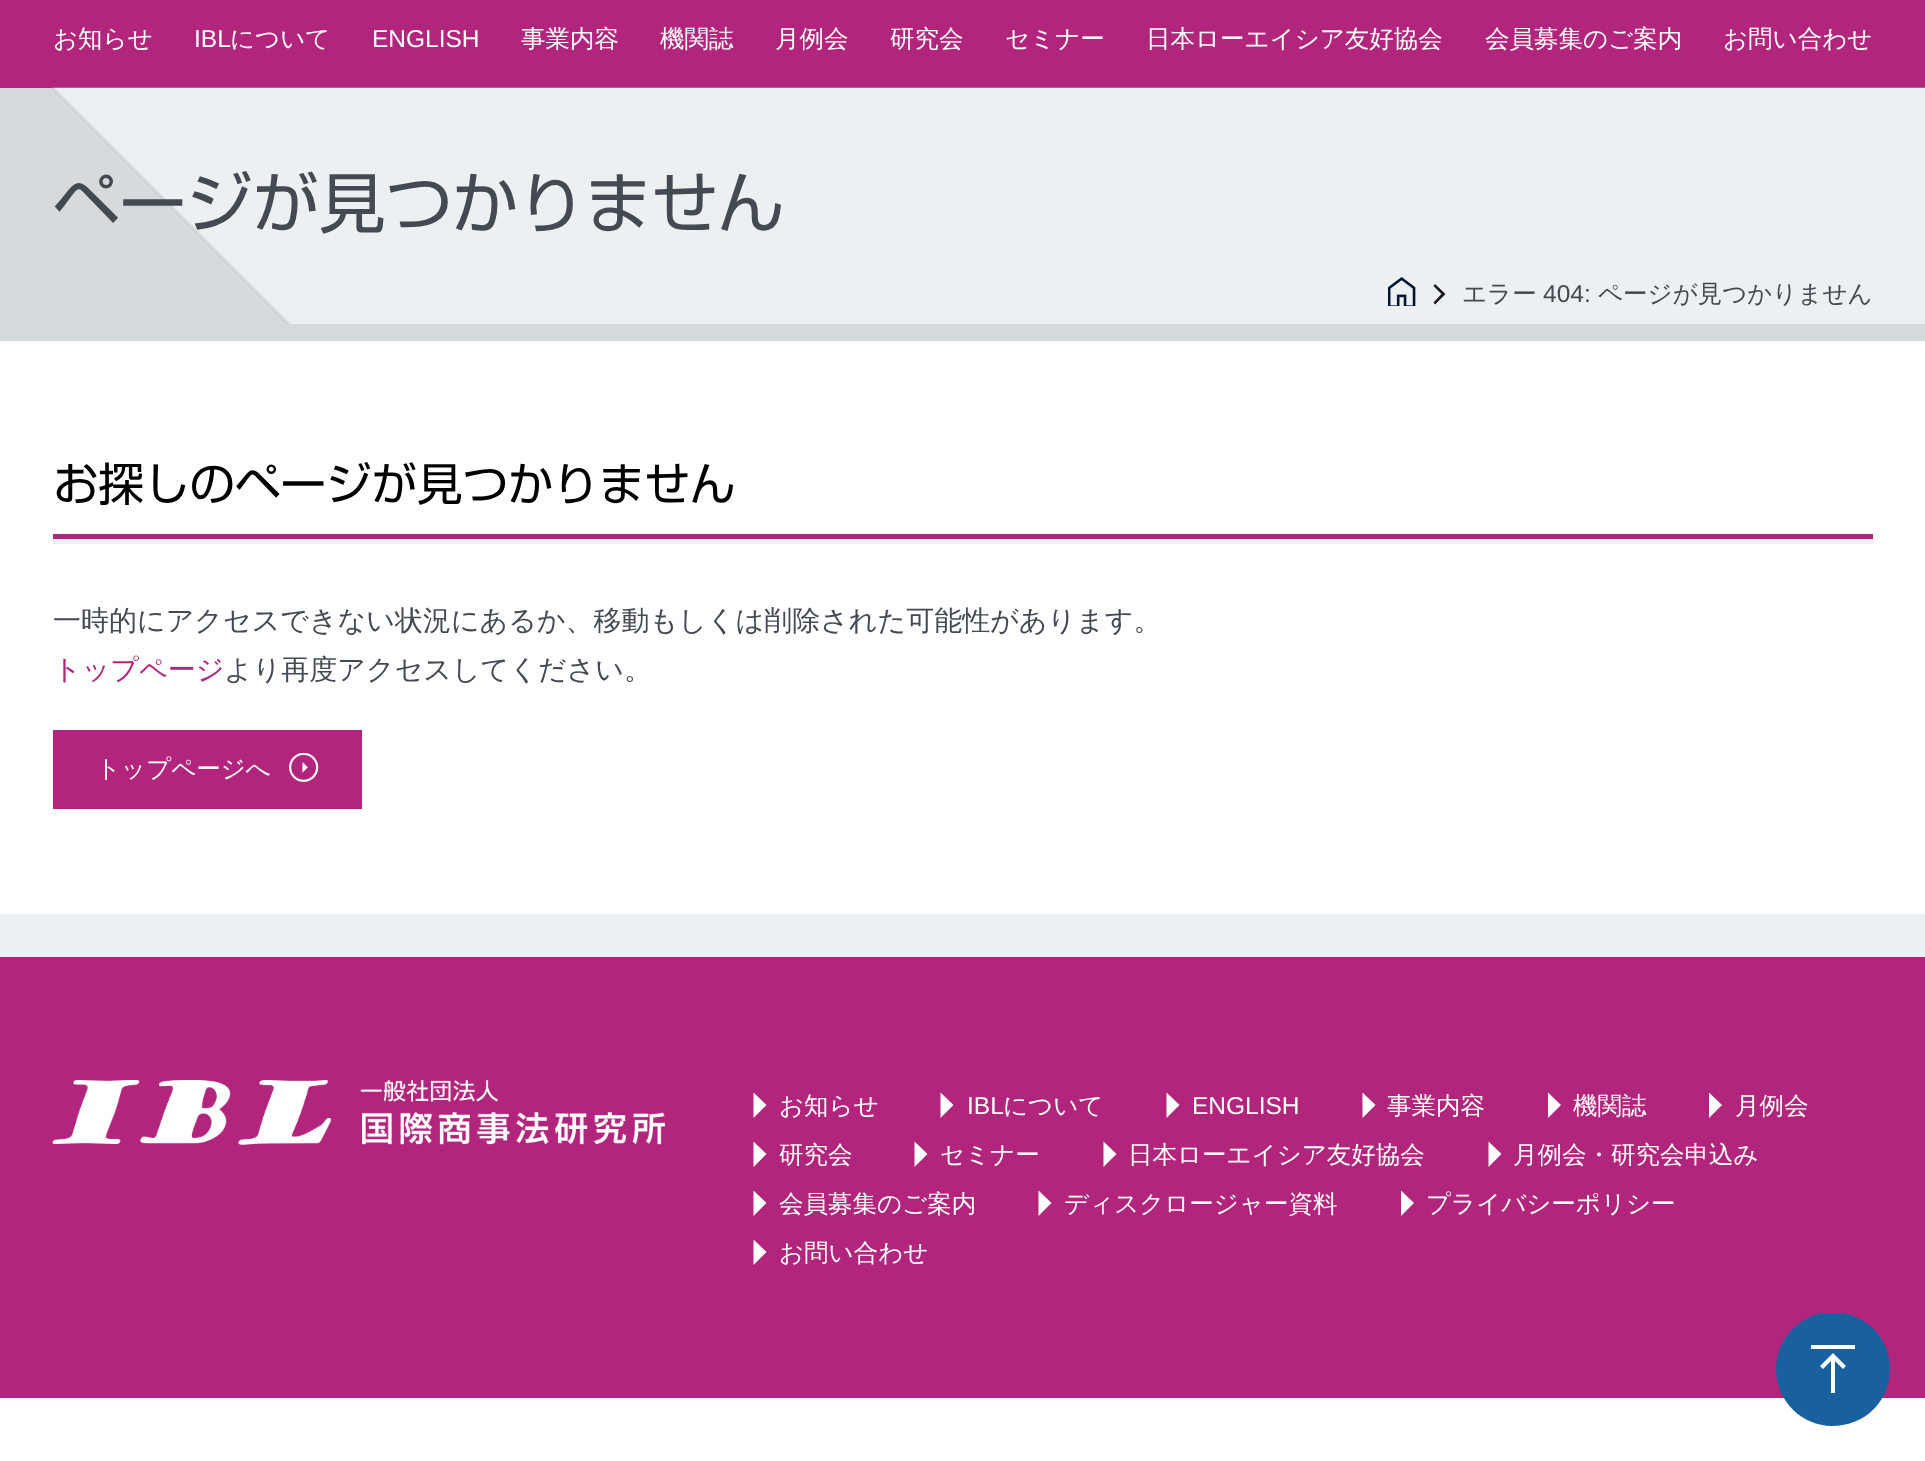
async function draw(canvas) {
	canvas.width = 1925;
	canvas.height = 1461;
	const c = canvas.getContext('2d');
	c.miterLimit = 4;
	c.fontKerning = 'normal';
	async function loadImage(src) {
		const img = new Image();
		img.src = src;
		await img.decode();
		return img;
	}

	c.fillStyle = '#fff';
	c.fillRect(0, 0, 1925, 1461);
	c.fillStyle = '#b1267c';
	c.fillRect(0, 0, 1925, 88);
	c.font = '500 24.5px WenQuanYi Zen Hei';
	c.fillStyle = '#fff';
	c.fillText('お知らせ', 53, 47);
	c.font = '24.5px Liberation Sans';
	c.fillText('IBL', 194, 47);
	c.font = '500 24.5px WenQuanYi Zen Hei';
	c.fillText('について', 230, 47);
	c.font = '24.5px Liberation Sans';
	c.fillText('ENGLISH', 372, 47);
	c.font = '500 24.5px WenQuanYi Zen Hei';
	for (const [text, x, y] of [
		['事業内容', 521, 47],
		['機関誌', 660, 47],
		['月例会', 775, 47],
		['研究会', 890, 47],
		['セミナー', 1005, 47],
		['日本ローエイシア友好協会', 1146, 47],
		['会員募集のご案内', 1485, 47],
		['お問い合わせ', 1723, 47],
	]) {
		c.fillText(text, x, y);
	}
	c.fillStyle = '#d5dadc';
	c.fillRect(0, 88, 53, 236);
	c.fillStyle = '#d5dadd';
	c.fillRect(0, 324, 1925, 17);
	c.drawImage(await loadImage('img1.png'), 52, 87, 1873, 237);
	c.font = '66.5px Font';
	c.fillStyle = '#444a52';
	c.fillText('ページが見つかりません', 53, 228);
	c.drawImage(await loadImage('img2.png'), 1388, 277, 28, 29);
	c.fillStyle = '#16181a';
	c.beginPath();
	c.moveTo(1441.5, 294);
	c.lineTo(1433.5, 286);
	c.lineTo(1435, 284);
	c.lineTo(1445.5, 294);
	c.lineTo(1435, 304.5);
	c.lineTo(1433.5, 302.5);
	c.closePath();
	c.fill('evenodd');
	c.font = '500 24.5px WenQuanYi Zen Hei';
	c.fillStyle = '#444a52';
	c.fillText('エラー', 1462, 302);
	c.font = '24.5px Liberation Sans';
	c.fillText('404:', 1543, 302);
	c.font = '500 24.5px WenQuanYi Zen Hei';
	c.fillText('ページが見つかりません', 1598, 302);
	c.fillStyle = '#eaeff1';
	c.fillRect(53, 539, 1820, 5);
	c.font = '45.5px Font';
	c.fillStyle = '#000';
	c.fillText('お探しのページが見つかりません', 53, 501);
	c.fillStyle = '#b1267c';
	c.fillRect(53, 534, 1820, 5);
	c.font = '500 28px WenQuanYi Zen Hei';
	c.fillStyle = '#444a52';
	c.fillText('一時的にアクセスできない状況にあるか、移動もしくは削除された可能性があります。', 53, 630);
	c.fillStyle = '#b1267c';
	c.fillText('トップページ', 53, 679);
	c.fillStyle = '#444a52';
	c.fillText('より再度アクセスしてください。', 224, 679);
	c.fillStyle = '#b1267c';
	c.fillRect(53, 730, 309, 79);
	c.font = '500 24.5px WenQuanYi Zen Hei';
	c.fillStyle = '#fff';
	c.fillText('トップページへ', 96, 777);
	c.drawImage(await loadImage('img3.png'), 289, 753, 30, 29);
	c.fillStyle = '#b1267c';
	c.fillRect(0, 957, 1925, 441);
	c.fillStyle = '#eaeff1';
	c.fillRect(0, 914, 1925, 43);
	c.drawImage(await loadImage('img4.png'), 52, 1080, 613, 65);
	c.fillStyle = '#fff';
	c.fillText('お知らせ', 779, 1114);
	c.beginPath();
	c.moveTo(766.5, 1105);
	c.lineTo(753.5, 1092.5);
	c.lineTo(753.5, 1118);
	c.closePath();
	c.fill('evenodd');
	c.font = '24.5px Liberation Sans';
	c.fillText('IBL', 967, 1114);
	c.beginPath();
	c.moveTo(953.5, 1105);
	c.lineTo(940.5, 1092.5);
	c.lineTo(940.5, 1118);
	c.closePath();
	c.fill('evenodd');
	c.font = '500 24.5px WenQuanYi Zen Hei';
	c.fillText('について', 1003, 1114);
	c.font = '24.5px Liberation Sans';
	c.fillText('ENGLISH', 1192, 1114);
	c.beginPath();
	c.moveTo(1179.5, 1105);
	c.lineTo(1166.5, 1092.5);
	c.lineTo(1166.5, 1118);
	c.closePath();
	c.fill('evenodd');
	c.font = '500 24.5px WenQuanYi Zen Hei';
	c.fillText('事業内容', 1387, 1114);
	c.beginPath();
	c.moveTo(1375.5, 1105);
	c.lineTo(1362.5, 1092.5);
	c.lineTo(1362.5, 1118);
	c.closePath();
	c.fill('evenodd');
	c.fillText('機関誌', 1573, 1114);
	c.beginPath();
	c.moveTo(1561, 1105);
	c.lineTo(1548, 1092.5);
	c.lineTo(1548, 1118);
	c.closePath();
	c.fill('evenodd');
	c.fillText('月例会', 1735, 1114);
	c.beginPath();
	c.moveTo(1722, 1105);
	c.lineTo(1709, 1092.5);
	c.lineTo(1709, 1118);
	c.closePath();
	c.fill('evenodd');
	c.fillText('研究会', 779, 1163);
	c.beginPath();
	c.moveTo(766.5, 1154);
	c.lineTo(753.5, 1141.5);
	c.lineTo(753.5, 1167);
	c.closePath();
	c.fill('evenodd');
	c.fillText('セミナー', 940, 1163);
	c.beginPath();
	c.moveTo(927.5, 1154);
	c.lineTo(914.5, 1141.5);
	c.lineTo(914.5, 1167);
	c.closePath();
	c.fill('evenodd');
	c.fillText('日本ローエイシア友好協会', 1128, 1163);
	c.beginPath();
	c.moveTo(1116.5, 1154);
	c.lineTo(1103.5, 1141.5);
	c.lineTo(1103.5, 1167);
	c.closePath();
	c.fill('evenodd');
	c.fillText('月例会・研究会申込み', 1513, 1163);
	c.beginPath();
	c.moveTo(1501.5, 1154);
	c.lineTo(1488.5, 1141.5);
	c.lineTo(1488.5, 1167);
	c.closePath();
	c.fill('evenodd');
	c.fillText('会員募集のご案内', 779, 1212);
	c.beginPath();
	c.moveTo(766.5, 1203);
	c.lineTo(753.5, 1190.5);
	c.lineTo(753.5, 1216);
	c.closePath();
	c.fill('evenodd');
	c.fillText('ディスクロージャー資料', 1064, 1212);
	c.beginPath();
	c.moveTo(1051.5, 1203);
	c.lineTo(1038.5, 1190.5);
	c.lineTo(1038.5, 1216);
	c.closePath();
	c.fill('evenodd');
	c.fillText('プライバシーポリシー', 1426, 1212);
	c.beginPath();
	c.moveTo(1414, 1203);
	c.lineTo(1401, 1190.5);
	c.lineTo(1401, 1216);
	c.closePath();
	c.fill('evenodd');
	c.fillText('お問い合わせ', 779, 1261);
	c.beginPath();
	c.moveTo(766.5, 1252);
	c.lineTo(753.5, 1239.5);
	c.lineTo(753.5, 1265);
	c.closePath();
	c.fill('evenodd');
	c.save();
	c.beginPath();
	c.rect(1776, 1313, 114, 113);
	c.clip();
	c.fillStyle = '#19619e';
	c.beginPath();
	c.moveTo(1832, 1312);
	c.bezierCurveTo(1865, 1312, 1890, 1338, 1890, 1369);
	c.bezierCurveTo(1890, 1401, 1865, 1426, 1832, 1426);
	c.bezierCurveTo(1802, 1426, 1776, 1401, 1776, 1369);
	c.bezierCurveTo(1776, 1338, 1802, 1312, 1832, 1312);
	c.closePath();
	c.fill('evenodd');
	c.restore();
	c.beginPath();
	c.moveTo(1811, 1349);
	c.lineTo(1811, 1345);
	c.lineTo(1855, 1345);
	c.lineTo(1855, 1349);
	c.closePath();
	c.moveTo(1831, 1393);
	c.lineTo(1831, 1361);
	c.lineTo(1823, 1369);
	c.lineTo(1820, 1366);
	c.lineTo(1833, 1353);
	c.lineTo(1846, 1366);
	c.lineTo(1843, 1369);
	c.lineTo(1835, 1361);
	c.lineTo(1835, 1393);
	c.closePath();
	c.fill('evenodd');
}

draw(document.querySelector('canvas'));
